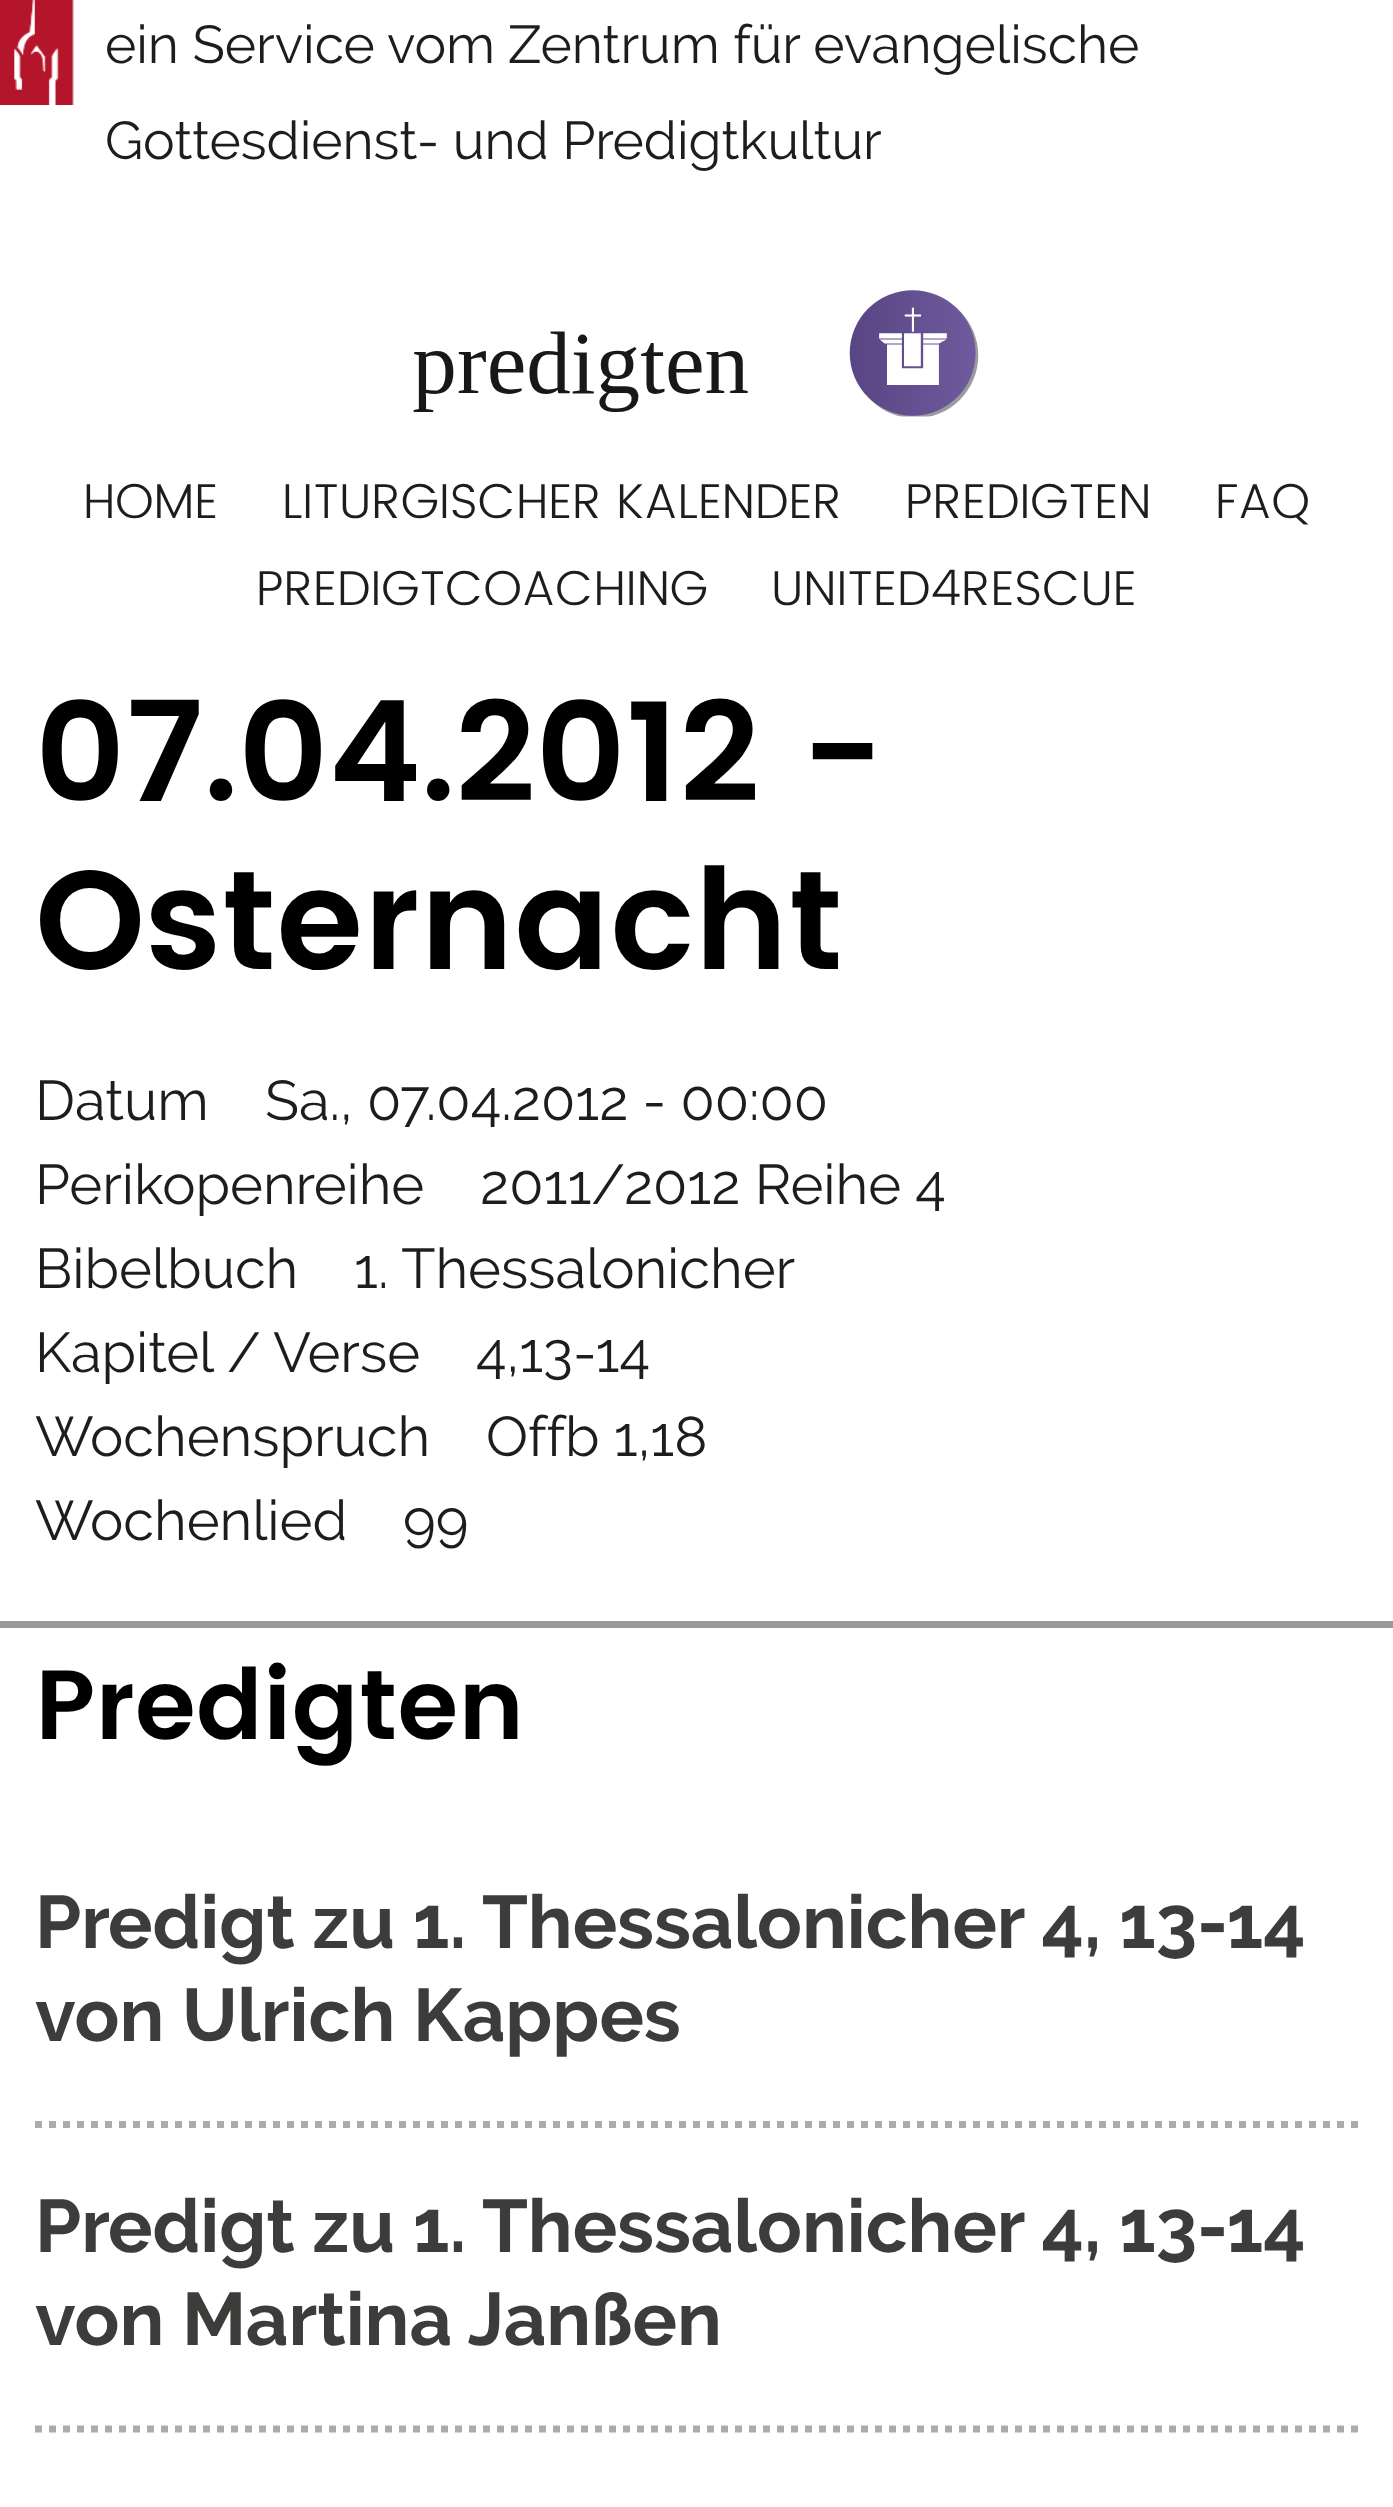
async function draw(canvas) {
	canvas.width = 1393;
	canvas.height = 2507;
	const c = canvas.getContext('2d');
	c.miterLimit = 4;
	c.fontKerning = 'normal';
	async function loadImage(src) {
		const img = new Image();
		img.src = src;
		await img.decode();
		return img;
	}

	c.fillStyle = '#fff';
	c.fillRect(0, 0, 1393, 2507);
	c.drawImage(await loadImage('img1.png'), 0, 0, 74, 105);
	c.font = '53.25px Raleway';
	c.fillStyle = '#1d1d1b';
	for (const [text, x, y] of [
		['ein Service vom', 105, 63],
		['Zentrum für evangelische', 508, 63],
		['Gottesdienst- und Predigtkultur', 105, 159],
	]) {
		c.fillText(text, x, y);
	}
	c.drawImage(await loadImage('img2.png'), 413, 290, 566, 127);
	c.font = '300 49px Poppins';
	for (const [text, x, y] of [
		['HOME', 83, 518],
		['LITURGISCHER KALENDER', 282, 518],
		['PREDIGTEN', 905, 518],
		['FAQ', 1215, 518],
		['PREDIGTCOACHING', 256, 605],
		['UNITED4RESCUE', 771, 605],
	]) {
		c.fillText(text, x, y);
	}
	c.font = '600 140px Poppins';
	c.fillStyle = '#000';
	c.fillText('07.04.2012 -', 35, 801);
	c.fillText('Osternacht', 35, 969);
	c.font = '56px Raleway';
	c.fillStyle = '#1d1d1b';
	for (const [text, x, y] of [
		['Datum', 35, 1120],
		['Sa., 07.04.2012 - 00:00', 265, 1120],
		['Perikopenreihe', 35, 1204],
		['2011/2012 Reihe 4', 480, 1204],
		['Bibelbuch', 35, 1288],
		['1. Thessalonicher', 354, 1288],
		['Kapitel / Verse', 35, 1372],
		['4,13-14', 476, 1372],
		['Wochenspruch', 35, 1456],
		['Offb 1,18', 486, 1456],
		['Wochenlied', 35, 1540],
		['99', 403, 1540],
	]) {
		c.fillText(text, x, y);
	}
	c.fillStyle = '#999';
	c.fillRect(0, 1621, 1393, 7);
	c.font = '600 98px Poppins';
	c.fillStyle = '#000';
	c.fillText('Predigten', 35, 1739);
	c.beginPath();
	c.moveTo(35, 2124.5);
	c.lineTo(1358, 2124.5);
	c.strokeStyle = '#ababab';
	c.lineWidth = 7;
	c.setLineDash([7, 7]);
	c.stroke();
	c.font = 'bold 74.25px Raleway';
	c.fillStyle = '#3c3c3b';
	c.fillText('Predigt zu 1. Thessalonicher 4, 13-14', 35, 1948);
	c.fillText('von Ulrich Kappes', 35, 2041);
	c.beginPath();
	c.moveTo(35, 2429);
	c.lineTo(1358, 2429);
	c.stroke();
	c.fillText('Predigt zu 1. Thessalonicher 4, 13-14', 35, 2252);
	c.fillText('von Martina Janßen', 35, 2345);
}

draw(document.querySelector('canvas'));
